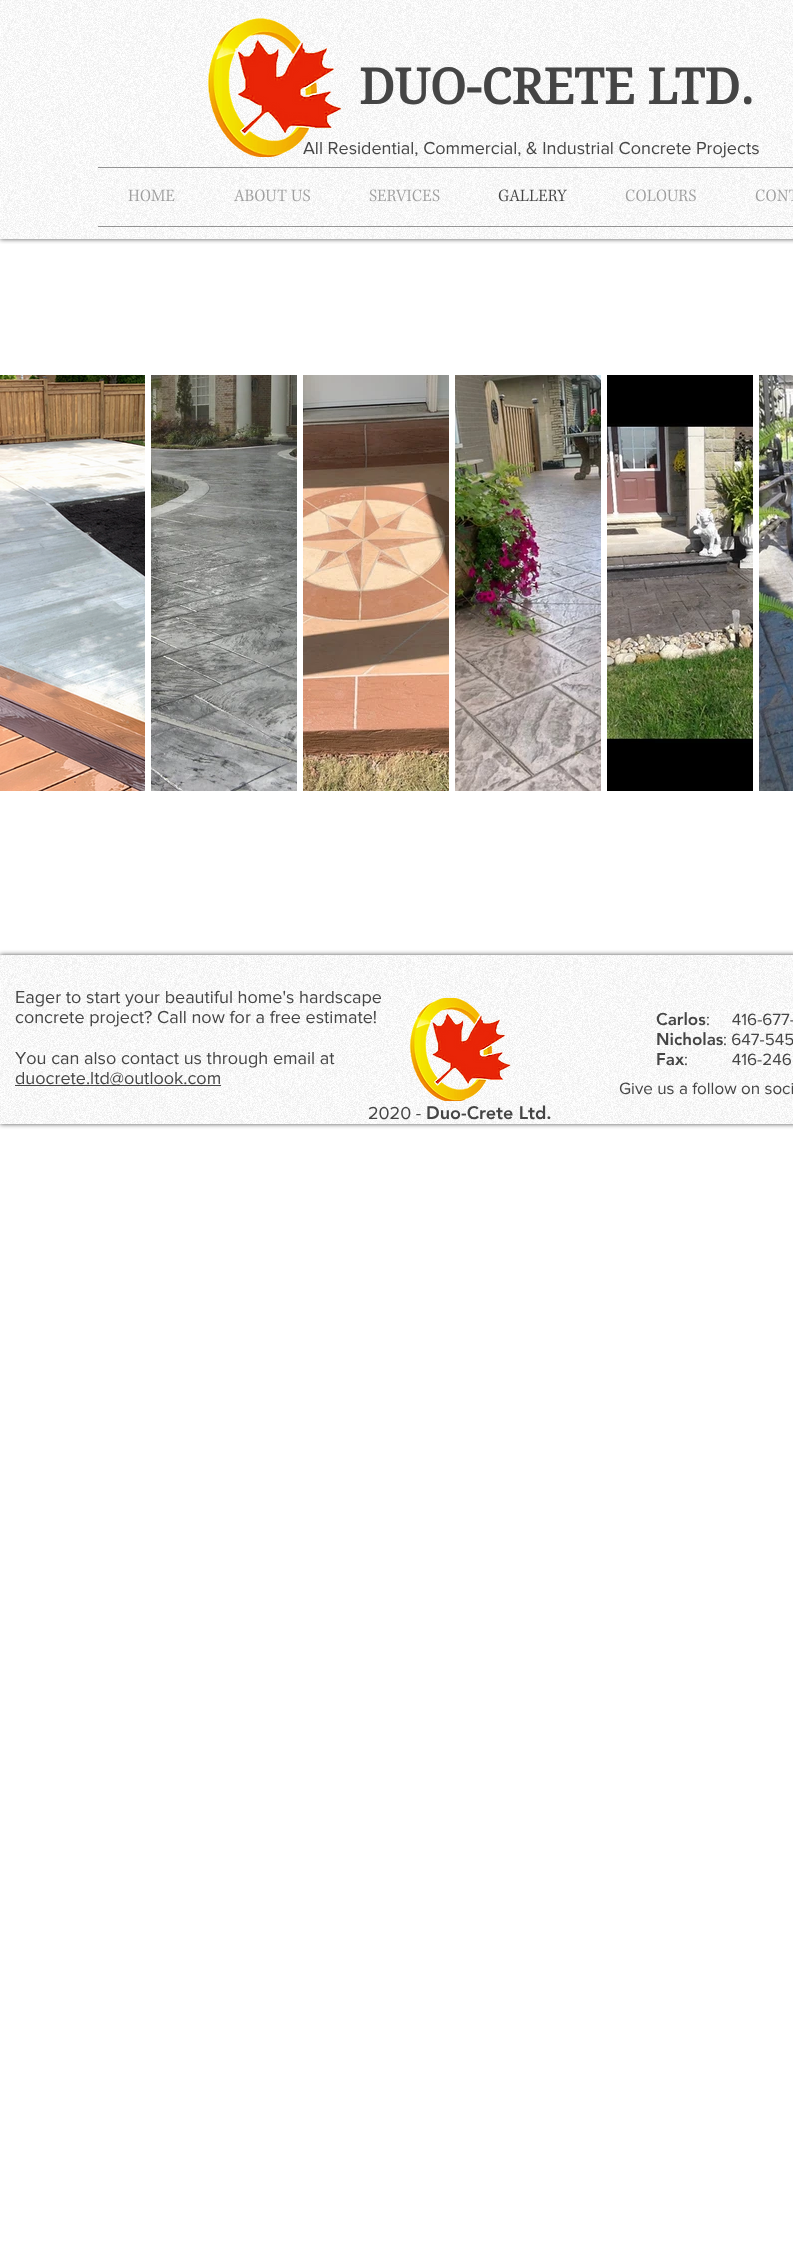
async function draw(canvas) {
	canvas.width = 793;
	canvas.height = 2241;
	const c = canvas.getContext('2d');
	c.miterLimit = 4;
	c.fontKerning = 'normal';
	async function loadImage(src) {
		const img = new Image();
		img.src = src;
		await img.decode();
		return img;
	}

	c.fillStyle = '#fff';
	c.fillRect(0, 0, 793, 2241);
	c.save();
	c.beginPath();
	c.rect(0, 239, 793, 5);
	c.clip();
	c.fillStyle = '#000000b3';
	c.filter = 'blur(2.5px)';
	c.beginPath();
	c.rect(0, 0, 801, 239);
	c.fill();
	c.filter = 'none';
	c.restore();
	c.drawImage(await loadImage('img1.png'), 0, 0, 793, 239);
	c.drawImage(await loadImage('img2.png'), 208, 18, 134, 139);
	c.font = 'bold 49px "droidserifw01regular"';
	c.fillStyle = '#454545';
	c.fillText('DUO-CRETE LTD.', 359, 104);
	c.font = '18px "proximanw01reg"';
	c.fillText('All Residential, Commercial, & Industrial Concrete Projects', 303, 154);
	c.fillStyle = '#2a2a2a7d';
	c.fillRect(98, 167, 695, 1);
	c.fillRect(98, 226, 695, 1);
	c.drawImage(await loadImage('img3.png'), 128, 189, 47, 13);
	c.drawImage(await loadImage('img4.png'), 233, 189, 77, 13);
	c.drawImage(await loadImage('img5.png'), 369, 189, 71, 13);
	c.drawImage(await loadImage('img6.png'), 498, 189, 69, 13);
	c.drawImage(await loadImage('img7.png'), 625, 189, 71, 13);
	c.drawImage(await loadImage('img8.png'), 755, 189, 38, 13);
	c.drawImage(await loadImage('img9.png'), 0, 375, 145, 416);
	c.drawImage(await loadImage('img10.png'), 151, 375, 146, 416);
	c.drawImage(await loadImage('img11.png'), 303, 375, 146, 416);
	c.drawImage(await loadImage('img12.png'), 455, 375, 146, 416);
	c.drawImage(await loadImage('img13.png'), 607, 375, 146, 416);
	c.drawImage(await loadImage('img14.png'), 759, 375, 34, 416);
	c.save();
	c.beginPath();
	c.moveTo(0, 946);
	c.lineTo(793, 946);
	c.lineTo(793, 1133);
	c.lineTo(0, 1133);
	c.closePath();
	c.moveTo(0, 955);
	c.lineTo(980, 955);
	c.lineTo(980, 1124);
	c.lineTo(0, 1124);
	c.closePath();
	c.clip('evenodd');
	c.fillStyle = '#000000b3';
	c.filter = 'blur(2.5px)';
	c.beginPath();
	c.rect(0, 955, 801, 169);
	c.fill();
	c.filter = 'none';
	c.restore();
	c.drawImage(await loadImage('img15.png'), 0, 955, 793, 169);
	c.fillStyle = '#454545';
	for (const [text, x, y] of [
		['Eager to start your beautiful home\'s hardscape', 15, 1003],
		['concrete project? Call now for a free estimate!', 15, 1023],
		['You can also contact us through email at', 15, 1064],
	]) {
		c.fillText(text, x, y);
	}
	c.fillRect(15, 1085, 206, 1);
	c.fillText('duocrete.ltd@outlook.com', 15, 1084);
	c.drawImage(await loadImage('img16.png'), 410, 998, 101, 103);
	c.font = '900 17px "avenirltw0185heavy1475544"';
	c.fillText('Carlos', 656, 1025);
	c.font = '17px "proximanw01reg"';
	c.fillText(':     416-677-', 706, 1025);
	c.font = '900 17px "avenirltw0185heavy1475544"';
	c.fillText('Nicholas', 656, 1045);
	c.font = '17px "proximanw01reg"';
	c.fillText(': 647-545', 723, 1045);
	c.font = '900 17px "avenirltw0185heavy1475544"';
	c.fillText('Fax', 656, 1065);
	c.font = '17px "proximanw01reg"';
	c.fillText(':          416-246', 684, 1065);
	c.fillText('Give us a follow on soci', 619, 1094);
	c.font = '18px "proximanw01reg"';
	c.fillText('2020 -', 368, 1119);
	c.font = '900 18px "avenirltw0185heavy1475544"';
	c.fillText('Duo-Crete Ltd.', 426, 1119);
}

draw(document.querySelector('canvas'));
